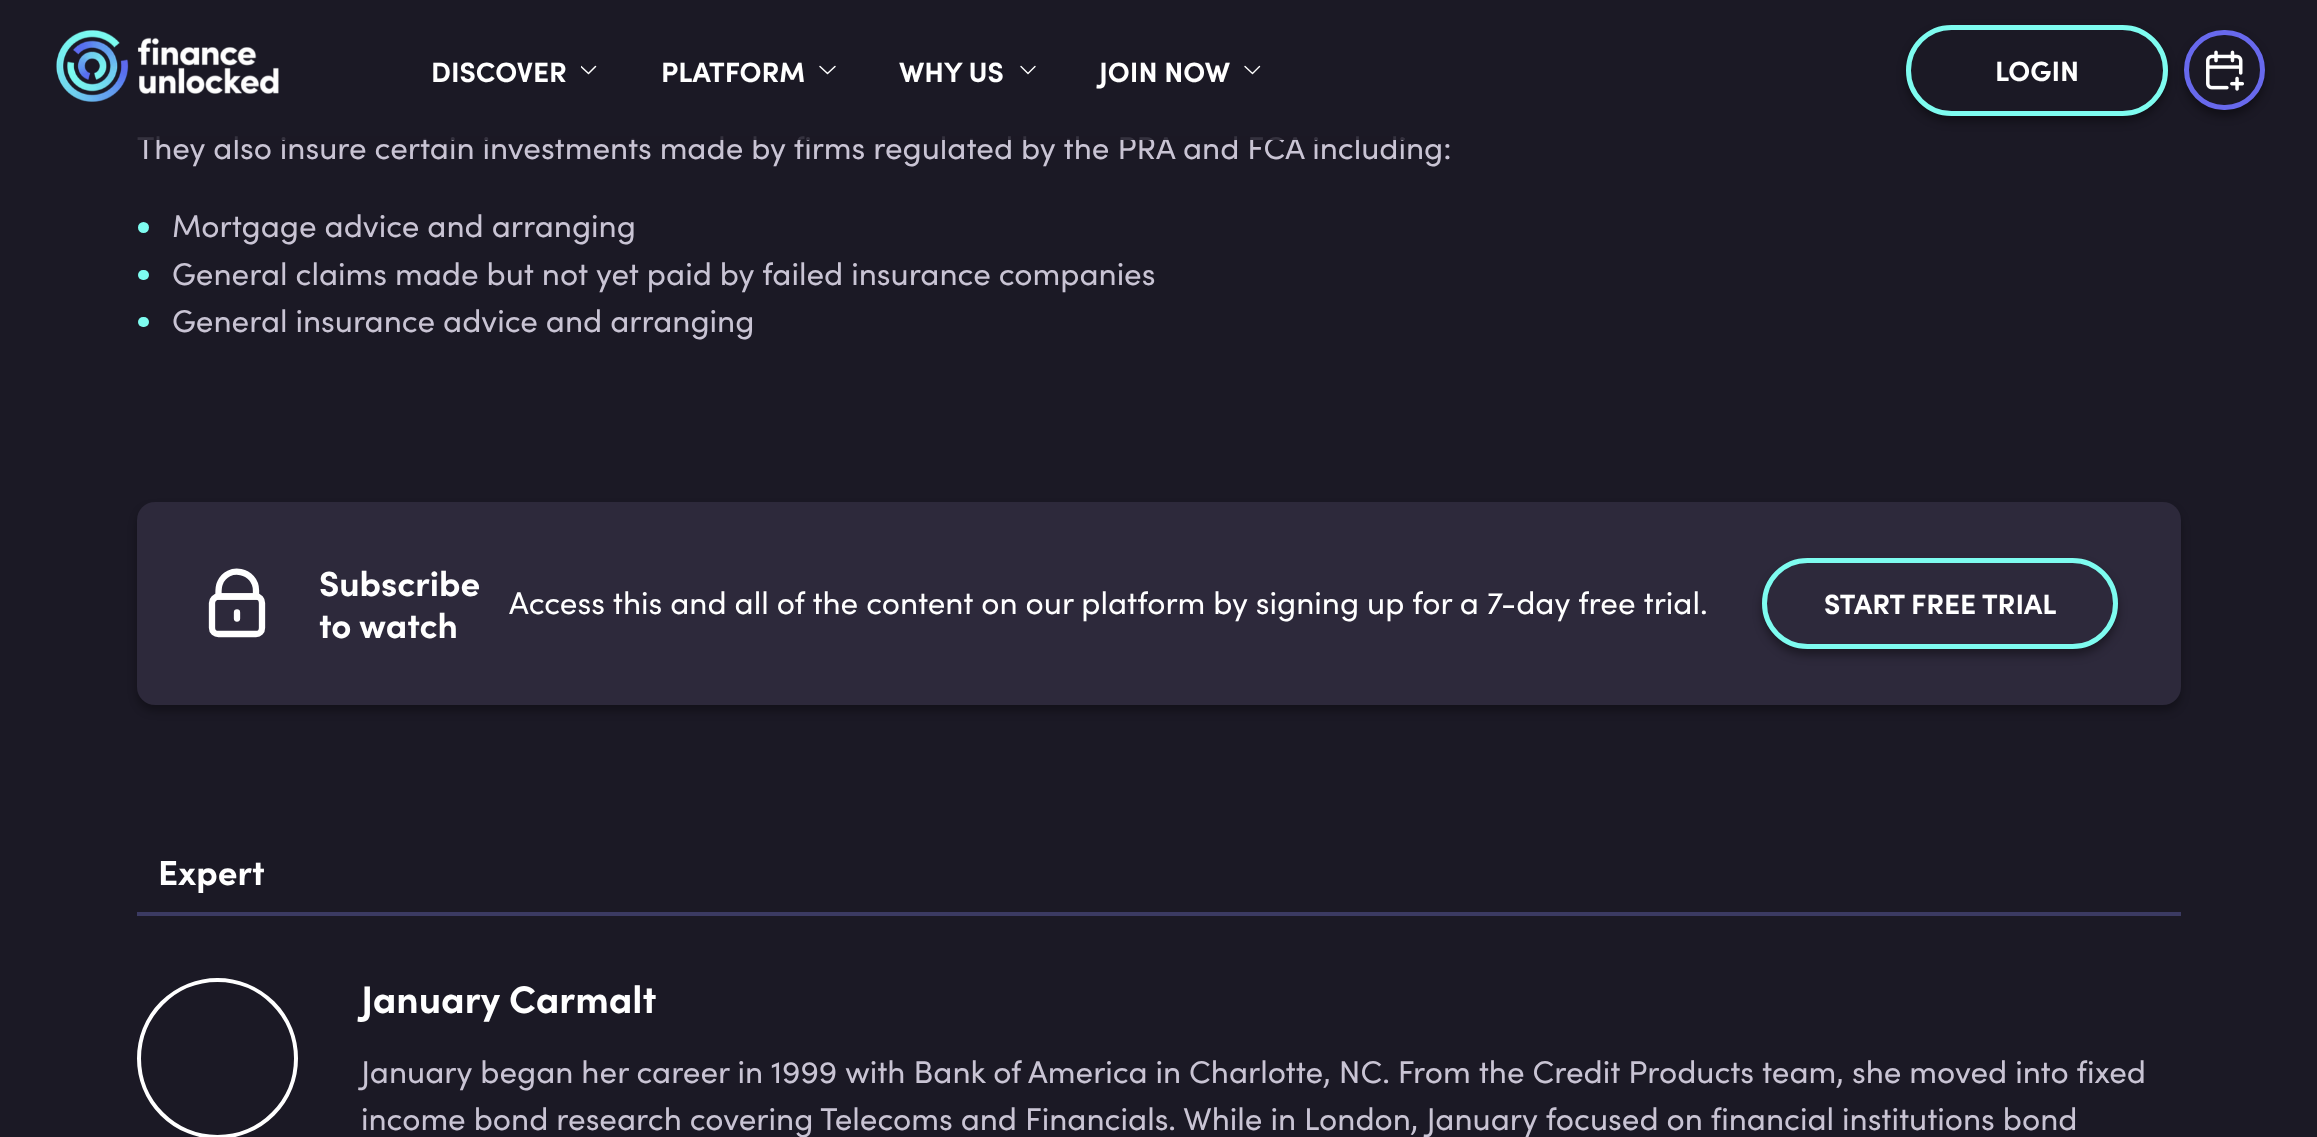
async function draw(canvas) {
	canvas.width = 2317;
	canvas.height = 1137;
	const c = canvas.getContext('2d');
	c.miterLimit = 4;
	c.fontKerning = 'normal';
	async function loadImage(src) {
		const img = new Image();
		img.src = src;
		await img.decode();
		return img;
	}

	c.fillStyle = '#1b1925';
	c.fillRect(0, 0, 2317, 1137);
	c.font = '31.5px Sofia';
	c.fillStyle = '#c9c4d4';
	c.fillText('They also insure certain investments made by firms regulated by the PRA and FCA including:', 137, 159);
	c.fillStyle = '#1b1925d9';
	c.fillRect(137, 136, 1267, 4);
	c.drawImage(await loadImage('img1.png'), 56, 30, 223, 72);
	c.font = 'bold 28px Sofia';
	c.fillStyle = '#fff';
	c.fillText('DISCOVER', 431, 82);
	c.save();
	c.beginPath();
	c.rect(581, 60, 18, 21);
	c.clip();
	c.beginPath();
	c.moveTo(581, 66.5);
	c.lineTo(588.5, 73.5);
	c.lineTo(595.5, 66.5);
	c.strokeStyle = '#fff';
	c.lineWidth = 1.5;
	c.lineCap = 'round';
	c.lineJoin = 'round';
	c.stroke();
	c.restore();
	c.fillText('PLATFORM', 661, 82);
	c.beginPath();
	c.moveTo(820, 66.5);
	c.lineTo(827.5, 73.5);
	c.lineTo(835, 66.5);
	c.strokeStyle = '#fff';
	c.lineWidth = 1.5;
	c.lineCap = 'round';
	c.lineJoin = 'round';
	c.stroke();
	c.fillText('WHY US', 899, 82);
	c.beginPath();
	c.moveTo(1021, 66.5);
	c.lineTo(1028, 73.5);
	c.lineTo(1035, 66.5);
	c.lineWidth = 1.4;
	c.stroke();
	c.fillText('JOIN NOW', 1099, 82);
	c.beginPath();
	c.moveTo(1245, 66.5);
	c.lineTo(1252.5, 73.5);
	c.lineTo(1259.5, 66.5);
	c.stroke();
	c.save();
	c.beginPath();
	c.moveTo(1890, 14);
	c.lineTo(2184, 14);
	c.lineTo(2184, 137);
	c.lineTo(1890, 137);
	c.closePath();
	c.moveTo(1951.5, 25);
	c.lineTo(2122.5, 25);
	c.bezierCurveTo(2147.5, 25, 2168, 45.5, 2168, 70.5);
	c.bezierCurveTo(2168, 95.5, 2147.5, 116, 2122.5, 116);
	c.lineTo(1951.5, 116);
	c.bezierCurveTo(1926.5, 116, 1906, 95.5, 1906, 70.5);
	c.bezierCurveTo(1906, 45.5, 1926.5, 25, 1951.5, 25);
	c.closePath();
	c.clip('evenodd');
	c.fillStyle = '#00000066';
	c.filter = 'blur(5px)';
	c.beginPath();
	c.roundRect(1906, 30, 262, 91, 45.5);
	c.fill();
	c.filter = 'none';
	c.restore();
	c.beginPath();
	c.roundRect(1908.5, 27.5, 257, 86, 43);
	c.strokeStyle = '#7efcf0';
	c.lineWidth = 5;
	c.lineJoin = 'miter';
	c.stroke();
	c.fillText('LOGIN', 1995, 81);
	c.save();
	c.beginPath();
	c.moveTo(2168, 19);
	c.lineTo(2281, 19);
	c.lineTo(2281, 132);
	c.lineTo(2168, 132);
	c.closePath();
	c.moveTo(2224, 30);
	c.lineTo(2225, 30);
	c.bezierCurveTo(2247, 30, 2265, 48, 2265, 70);
	c.bezierCurveTo(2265, 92, 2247, 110, 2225, 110);
	c.lineTo(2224, 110);
	c.bezierCurveTo(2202, 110, 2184, 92, 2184, 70);
	c.bezierCurveTo(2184, 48, 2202, 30, 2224, 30);
	c.closePath();
	c.clip('evenodd');
	c.fillStyle = '#00000066';
	c.filter = 'blur(5px)';
	c.beginPath();
	c.roundRect(2184, 35, 81, 81, 40.5);
	c.fill();
	c.filter = 'none';
	c.restore();
	c.beginPath();
	c.roundRect(2186.5, 32.5, 76, 75, 37.5);
	c.strokeStyle = '#6869ed';
	c.stroke();
	c.drawImage(await loadImage('img2.png'), 2206, 50, 38, 41);
	c.fillStyle = '#7efcf0';
	c.beginPath();
	c.arc(143.5, 227.5, 5.5, 0, 2 * Math.PI);
	c.fill();
	c.font = '31.5px Sofia';
	c.fillStyle = '#c9c4d4';
	c.fillText('Mortgage advice and arranging', 172, 237);
	c.fillStyle = '#7efcf0';
	c.beginPath();
	c.roundRect(138, 270, 11, 10, 5);
	c.fill();
	c.fillStyle = '#c9c4d4';
	c.fillText('General claims made but not yet paid by failed insurance companies', 172, 285);
	c.fillStyle = '#7efcf0';
	c.beginPath();
	c.roundRect(138, 317, 11, 10, 5);
	c.fill();
	c.fillStyle = '#c9c4d4';
	c.fillText('General insurance advice and arranging', 172, 332);
	c.fillStyle = '#0000004d';
	c.filter = 'blur(4.5px)';
	c.beginPath();
	c.roundRect(137, 508, 2044, 203, 18);
	c.fill();
	c.filter = 'none';
	c.fillStyle = '#2d293b';
	c.beginPath();
	c.roundRect(137, 502, 2044, 203, 18);
	c.fill();
	c.beginPath();
	c.moveTo(262, 603);
	c.bezierCurveTo(262, 599.5, 259.5, 596.5, 256, 596.5);
	c.lineTo(218.5, 596.5);
	c.bezierCurveTo(215, 596.5, 212, 599.5, 212, 603);
	c.lineTo(212, 628);
	c.bezierCurveTo(212, 631.5, 215, 634, 218.5, 634);
	c.lineTo(256, 634);
	c.bezierCurveTo(259.5, 634, 262, 631.5, 262, 628);
	c.closePath();
	c.strokeStyle = '#fff';
	c.lineWidth = 6.3;
	c.lineJoin = 'round';
	c.stroke();
	c.beginPath();
	c.moveTo(256, 596.5);
	c.lineTo(218.5, 596.5);
	c.bezierCurveTo(218.5, 592, 218, 587.5, 220, 583);
	c.bezierCurveTo(227.5, 564.5, 256, 570, 256, 590.5);
	c.closePath();
	c.moveTo(237, 612.5);
	c.lineTo(237, 618.5);
	c.stroke();
	c.font = 'bold 35px Sofia';
	c.fillStyle = '#fff';
	c.fillText('Subscribe', 319, 596);
	c.fillText('to watch', 319, 638);
	c.font = '31.5px Sofia';
	c.fillText('Access this and all of the content on our platform by signing up for a 7-day free trial.', 509, 614);
	c.save();
	c.beginPath();
	c.moveTo(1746, 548);
	c.lineTo(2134, 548);
	c.lineTo(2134, 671);
	c.lineTo(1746, 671);
	c.closePath();
	c.moveTo(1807.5, 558);
	c.lineTo(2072.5, 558);
	c.bezierCurveTo(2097.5, 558, 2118, 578.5, 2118, 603.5);
	c.bezierCurveTo(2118, 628.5, 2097.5, 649, 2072.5, 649);
	c.lineTo(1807.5, 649);
	c.bezierCurveTo(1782.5, 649, 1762, 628.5, 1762, 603.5);
	c.bezierCurveTo(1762, 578.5, 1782.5, 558, 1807.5, 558);
	c.closePath();
	c.clip('evenodd');
	c.fillStyle = '#00000066';
	c.filter = 'blur(5px)';
	c.beginPath();
	c.roundRect(1762, 564, 356, 91, 45.5);
	c.fill();
	c.filter = 'none';
	c.restore();
	c.beginPath();
	c.roundRect(1764.5, 560.5, 351, 86, 43);
	c.strokeStyle = '#7efcf0';
	c.lineWidth = 5;
	c.lineJoin = 'miter';
	c.stroke();
	c.font = 'bold 28px Sofia';
	c.fillText('START FREE TRIAL', 1824, 614);
	c.fillStyle = '#3b3a62';
	c.fillRect(137, 912, 2044, 4);
	c.font = 'bold 35px Sofia';
	c.fillStyle = '#fff';
	c.fillText('Expert', 158, 885);
	c.beginPath();
	c.arc(217.5, 1058.5, 78.5, 0, 2 * Math.PI);
	c.strokeStyle = '#fff';
	c.lineWidth = 4;
	c.stroke();
	c.font = 'bold 38.5px Sofia';
	c.fillText('January Carmalt', 361, 1013);
	c.font = '31.5px Sofia';
	c.fillStyle = '#c9c4d4';
	c.fillText('January began her career in 1999 with Bank of America in Charlotte, NC. From the Credit Products team, she moved into fixed', 361, 1083);
	c.fillText('income bond research covering Telecoms and Financials. While in London, January focused on financial institutions bond', 361, 1130);
}

draw(document.querySelector('canvas'));
